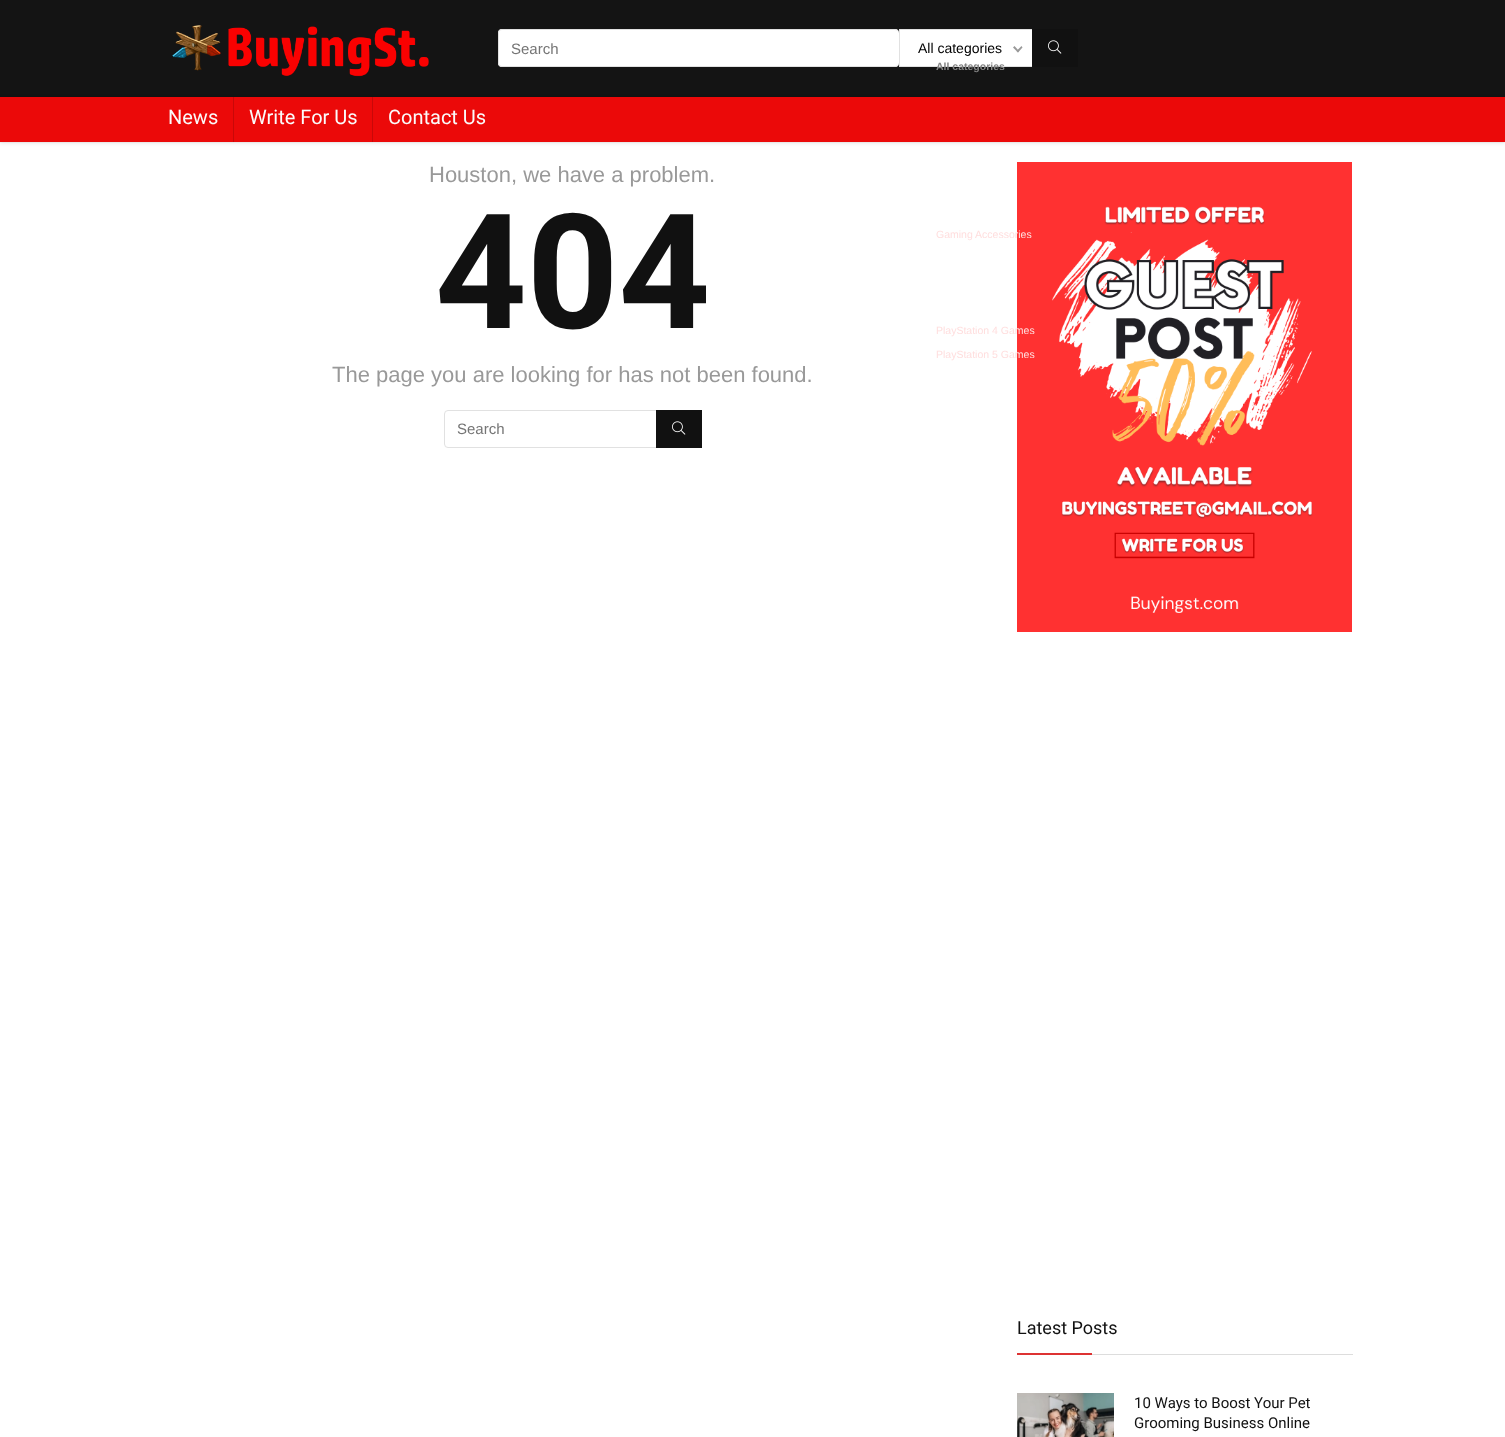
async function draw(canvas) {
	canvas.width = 1505;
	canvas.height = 1437;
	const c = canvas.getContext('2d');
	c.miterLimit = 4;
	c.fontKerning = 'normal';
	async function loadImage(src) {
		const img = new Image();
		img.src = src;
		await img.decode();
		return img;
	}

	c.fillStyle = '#fff';
	c.fillRect(0, 0, 1505, 1437);
	c.fillStyle = '#141414';
	c.fillRect(0, 0, 1505, 97);
	c.strokeStyle = '#00000008';
	c.strokeRect(-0.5, 96.5, 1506, 46);
	c.fillStyle = '#0000001a';
	c.filter = 'blur(2px)';
	c.beginPath();
	c.rect(0, 98, 1505, 45);
	c.fill();
	c.filter = 'none';
	c.fillStyle = '#eb0909';
	c.fillRect(0, 97, 1505, 45);
	c.fillStyle = '#c80808';
	c.fillRect(233, 97, 1, 45);
	c.font = '20px Roboto';
	c.fillStyle = '#fbfbfb';
	c.fillText('News', 168, 124);
	c.fillStyle = '#c80808';
	c.fillRect(372, 97, 1, 45);
	c.fillStyle = '#fbfbfb';
	c.fillText('Write For Us', 249, 124);
	c.fillText('Contact Us', 388, 124);
	c.drawImage(await loadImage('img1.png'), 172, 25, 257, 52);
	c.fillStyle = '#fff';
	c.beginPath();
	c.roundRect(498, 29, 401, 38, 4);
	c.fill();
	c.fillStyle = '#e1e1e1';
	c.beginPath();
	c.moveTo(502, 29);
	c.lineTo(895, 29);
	c.bezierCurveTo(897, 29, 899, 31, 899, 33);
	c.lineTo(899, 63);
	c.bezierCurveTo(899, 65, 897, 67, 895, 67);
	c.lineTo(502, 67);
	c.bezierCurveTo(500, 67, 498, 65, 498, 63);
	c.lineTo(498, 33);
	c.bezierCurveTo(498, 31, 500, 29, 502, 29);
	c.closePath();
	c.moveTo(502, 30);
	c.lineTo(895, 30);
	c.bezierCurveTo(897, 30, 899, 31, 899, 33);
	c.lineTo(899, 63);
	c.bezierCurveTo(899, 65, 897, 66, 895, 66);
	c.lineTo(502, 66);
	c.bezierCurveTo(500, 66, 499, 65, 499, 63);
	c.lineTo(499, 33);
	c.bezierCurveTo(499, 31, 500, 30, 502, 30);
	c.closePath();
	c.fill('evenodd');
	c.font = '15px Liberation Sans';
	c.fillStyle = '#757575';
	c.fillText('Search', 511, 54);
	for (const [x, y, w, h, color] of [
		[900, 30, 132, 36, '#fff'],
		[899, 29, 133, 1, '#e1e1e1'],
		[899, 66, 133, 1, '#e1e1e1'],
		[899, 29, 1, 38, '#e1e1e1'],
	]) {
		c.fillStyle = color;
		c.fillRect(x, y, w, h);
	}
	c.font = '14px Liberation Sans';
	c.fillStyle = '#000';
	c.fillText('All categories', 918, 53);
	c.fillStyle = '#999';
	c.beginPath();
	c.moveTo(1021.5, 46);
	c.lineTo(1022.5, 47.5);
	c.lineTo(1018, 52.5);
	c.lineTo(1016.5, 51);
	c.closePath();
	c.fill();
	c.beginPath();
	c.moveTo(1014.5, 46);
	c.lineTo(1019, 51);
	c.lineTo(1018, 52.5);
	c.lineTo(1013, 47.5);
	c.closePath();
	c.fill();
	c.font = 'bold 10.5px Liberation Sans';
	c.fillStyle = '#838383';
	c.fillText('All categories', 936, 70);
	c.drawImage(await loadImage('img3.png'), 1017, 162, 335, 470);
	c.font = '10.5px Liberation Sans';
	c.fillStyle = '#ffdede';
	for (const [text, x, y] of [
		['Gaming Accessories', 936, 238],
		['PlayStation 4 Games', 936, 334],
		['PlayStation 5 Games', 936, 358],
	]) {
		c.fillText(text, x, y);
	}
	c.fillStyle = '#111';
	c.fillRect(1032, 29, 46, 38);
	c.drawImage(await loadImage('img2.png'), 1048, 40, 14, 14);
	c.font = '22px Liberation Sans';
	c.fillStyle = '#999';
	c.fillText('Houston, we have a problem.', 429, 182);
	c.font = 'bold 160px Roboto';
	c.fillStyle = '#111';
	c.fillText('404', 435, 328);
	c.font = '22px Liberation Sans';
	c.fillStyle = '#999';
	c.fillText('The page you are looking for has not been found.', 332, 382);
	c.beginPath();
	c.roundRect(444.5, 410.5, 257, 37, 3.5);
	c.strokeStyle = '#e1e1e1';
	c.stroke();
	c.font = '15px Liberation Sans';
	c.fillStyle = '#757575';
	c.fillText('Search', 457, 434);
	c.fillStyle = '#111';
	c.fillRect(656, 410, 46, 38);
	c.drawImage(await loadImage('img2.png'), 672, 421, 14, 14);
	c.fillStyle = '#ddd';
	c.fillRect(1092, 1354, 261, 1);
	c.font = '18px Roboto';
	c.fillStyle = '#111';
	c.fillText('Latest Posts', 1017, 1334);
	c.fillStyle = '#d33';
	c.fillRect(1017, 1353, 75, 2);
	c.drawImage(await loadImage('img4.png'), 1017, 1393, 97, 44);
	c.font = '15px Roboto';
	c.fillStyle = '#111';
	c.fillText('10 Ways to Boost Your Pet', 1134, 1408);
	c.fillText('Grooming Business Online', 1134, 1428);
}

draw(document.querySelector('canvas'));
